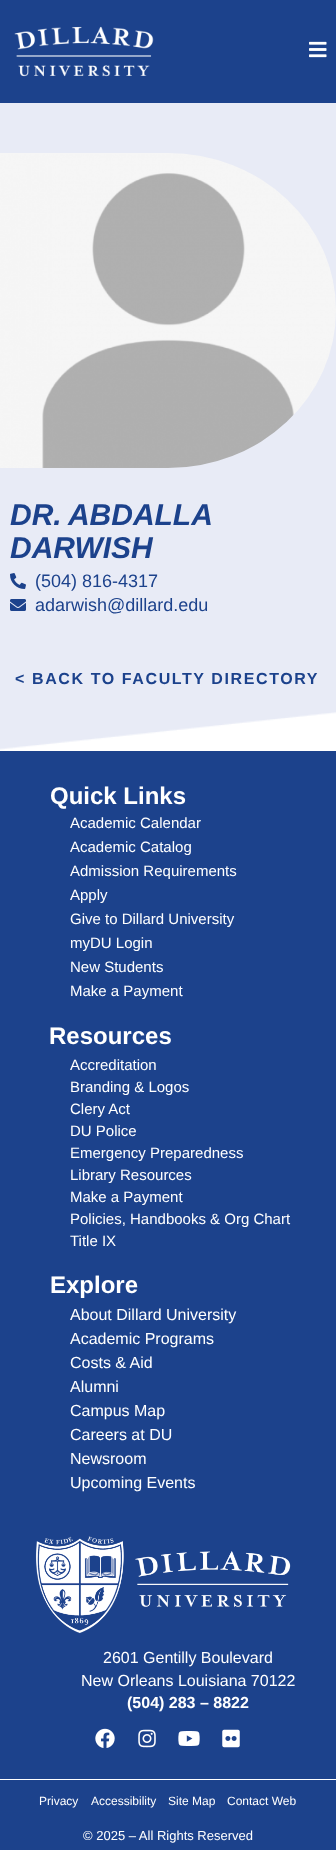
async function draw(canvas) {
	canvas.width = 336;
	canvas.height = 1850;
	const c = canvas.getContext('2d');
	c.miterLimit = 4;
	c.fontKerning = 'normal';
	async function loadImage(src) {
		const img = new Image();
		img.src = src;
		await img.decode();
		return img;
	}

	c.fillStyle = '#fff';
	c.fillRect(0, 0, 336, 1850);
	c.fillStyle = '#1c428c';
	c.fillRect(0, 0, 336, 103);
	c.drawImage(await loadImage('img1.png'), 14, 26, 140, 51);
	c.drawImage(await loadImage('img2.png'), 309, 41, 18, 17);
	c.drawImage(await loadImage('img3.png'), 0, 103, 336, 647);
	c.drawImage(await loadImage('img4.png'), 0, 153, 336, 315);
	c.wordSpacing = '-1px';
	c.font = 'italic bold 30px Liberation Sans';
	c.fillText('DR. ABDALLA', 10, 525);
	c.wordSpacing = '0px';
	c.fillText('DARWISH', 10, 558);
	c.drawImage(await loadImage('img5.png'), 10, 573, 16, 16);
	c.font = '18px Liberation Sans';
	c.fillText('(504) 816-4317', 35, 587);
	c.drawImage(await loadImage('img6.png'), 10, 599, 16, 12);
	c.fillText('adarwish@dillard.edu', 35, 611);
	c.letterSpacing = '1.6px';
	c.font = 'bold 16px Liberation Sans';
	c.fillText('< BACK TO FACULTY DIRECTORY', 15, 684);
	c.fillRect(0, 751, 336, 1028);
	c.letterSpacing = '0px';
	c.font = 'bold 24px Liberation Sans';
	c.fillStyle = '#fff';
	c.fillText('Quick Links', 50, 804);
	c.font = '15px Liberation Sans';
	for (const [text, x, y] of [
		['Academic Calendar', 70, 828],
		['Academic Catalog', 70, 852],
		['Admission Requirements', 70, 876],
		['Apply', 70, 900],
		['Give to Dillard University', 70, 924],
		['myDU Login', 70, 948],
		['New Students', 70, 972],
		['Make a Payment', 70, 996],
	]) {
		c.fillText(text, x, y);
	}
	c.font = 'bold 24px Liberation Sans';
	c.fillText('Resources', 49, 1044);
	c.font = '15px Liberation Sans';
	for (const [text, x, y] of [
		['Accreditation', 70, 1070],
		['Branding & Logos', 70, 1092],
		['Clery Act', 70, 1114],
		['DU Police', 70, 1136],
		['Emergency Preparedness', 70, 1158],
		['Library Resources', 70, 1180],
		['Make a Payment', 70, 1202],
		['Policies, Handbooks & Org Chart', 70, 1224],
		['Title IX', 70, 1246],
	]) {
		c.fillText(text, x, y);
	}
	c.font = 'bold 24px Liberation Sans';
	c.fillText('Explore', 50, 1293);
	c.font = '16px Liberation Sans';
	for (const [text, x, y] of [
		['About Dillard University', 70, 1320],
		['Academic Programs', 70, 1344],
		['Costs & Aid', 70, 1368],
		['Alumni', 70, 1392],
		['Campus Map', 70, 1416],
		['Careers at DU', 70, 1440],
		['Newsroom', 70, 1464],
		['Upcoming Events', 70, 1488],
	]) {
		c.fillText(text, x, y);
	}
	c.drawImage(await loadImage('img7.png'), 35, 1536, 256, 98);
	c.fillText('2601 Gentilly Boulevard', 103, 1663);
	c.fillText('New Orleans Louisiana 70122', 81, 1686);
	c.font = 'bold 16px Liberation Sans';
	c.fillText('(504) 283 – 8822', 127, 1708);
	c.drawImage(await loadImage('img8.png'), 95, 1728, 20, 20);
	c.drawImage(await loadImage('img9.png'), 138, 1729, 18, 19);
	c.drawImage(await loadImage('img10.png'), 178, 1731, 22, 15);
	c.drawImage(await loadImage('img11.png'), 222, 1729, 18, 19);
	c.fillStyle = '#1c428c';
	c.fillRect(0, 1780, 336, 70);
	c.font = '12px Liberation Sans';
	c.fillStyle = '#fff';
	for (const [text, x, y] of [
		['Privacy', 39, 1805],
		['Accessibility', 91, 1805],
		['Site Map', 168, 1805],
		['Contact Web', 227, 1805],
	]) {
		c.fillText(text, x, y);
	}
	c.font = '13px Liberation Sans';
	c.fillText('© 2025 – All Rights Reserved', 83, 1840);
}

draw(document.querySelector('canvas'));
